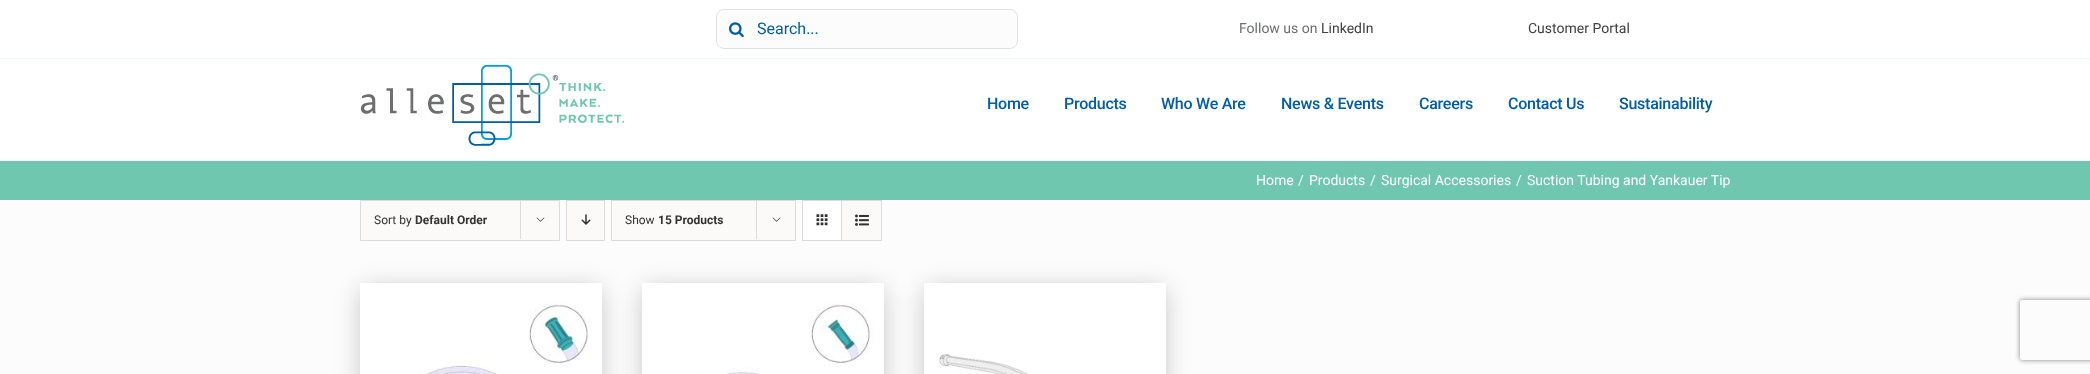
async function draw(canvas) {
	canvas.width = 2090;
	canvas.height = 374;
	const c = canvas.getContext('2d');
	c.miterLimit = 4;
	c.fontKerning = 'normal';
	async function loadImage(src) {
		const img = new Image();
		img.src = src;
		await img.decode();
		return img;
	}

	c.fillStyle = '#fcfcfc';
	c.fillRect(0, 0, 2090, 374);
	c.fillStyle = '#fff';
	c.fillRect(0, 0, 2090, 58);
	c.fillStyle = '#fcfcfc';
	c.beginPath();
	c.roundRect(716.5, 9.5, 301, 39, 7.5);
	c.fill();
	c.strokeStyle = '#e2e2e2';
	c.stroke();
	c.drawImage(await loadImage('img1.png'), 729, 22, 15, 16);
	c.font = '16px Roboto';
	c.fillStyle = '#005da6';
	c.fillText('Search...', 757, 34);
	c.font = '14px Roboto';
	c.fillStyle = '#6d6e70';
	c.fillText('Follow us on', 1239, 33);
	c.fillStyle = '#404041';
	c.fillText('LinkedIn', 1321, 33);
	c.fillText('Customer Portal', 1528, 33);
	c.fillStyle = '#fff';
	c.fillRect(0, 59, 2090, 102);
	c.fillStyle = '#f1f6f9';
	c.fillRect(0, 58, 2090, 1);
	c.drawImage(await loadImage('img2.png'), 360, 65, 265, 81);
	c.letterSpacing = '-0.25px';
	c.font = '500 16px Roboto';
	c.fillStyle = '#005da6';
	for (const [text, x, y] of [
		['Home', 987, 109],
		['Products', 1064, 109],
		['Who We Are', 1161, 109],
		['News & Events', 1281, 109],
		['Careers', 1419, 109],
		['Contact Us', 1508, 109],
		['Sustainability', 1619, 109],
	]) {
		c.fillText(text, x, y);
	}
	c.fillStyle = '#70c7af';
	c.fillRect(0, 161, 2090, 39);
	c.letterSpacing = '0px';
	c.font = '14px Roboto';
	c.fillStyle = '#fff';
	for (const [text, x, y] of [
		['Home', 1256, 185],
		['/', 1298, 185],
		['Products', 1309, 185],
		['/', 1370, 185],
		['Surgical Accessories', 1381, 185],
		['/', 1516, 185],
		['Suction Tubing and Yankauer Tip', 1527, 185],
	]) {
		c.fillText(text, x, y);
	}
	c.fillStyle = '#fbfaf9';
	c.beginPath();
	c.rect(360.5, 200.5, 199, 40);
	c.fill();
	c.strokeStyle = '#dbdbdb';
	c.stroke();
	c.font = '12px Roboto';
	c.fillStyle = '#333';
	c.fillText('Sort by', 374, 224);
	c.font = 'bold 12px Roboto';
	c.fillText('Default Order', 415, 224);
	c.fillStyle = '#dbdbdb';
	c.fillRect(520, 200, 1, 39);
	c.drawImage(await loadImage('img3.png'), 536, 217, 9, 5);
	c.fillStyle = '#fbfaf9';
	c.beginPath();
	c.rect(566.5, 200.5, 38, 40);
	c.fill();
	c.stroke();
	c.drawImage(await loadImage('img4.png'), 581, 214, 10, 11);
	c.beginPath();
	c.rect(611.5, 200.5, 184, 40);
	c.fill();
	c.stroke();
	c.font = '12px Roboto';
	c.fillStyle = '#333';
	c.fillText('Show', 625, 224);
	c.font = 'bold 12px Roboto';
	c.fillText('15 Products', 658, 224);
	c.fillStyle = '#dbdbdb';
	c.fillRect(756, 200, 1, 39);
	c.drawImage(await loadImage('img3.png'), 772, 217, 9, 5);
	c.strokeRect(802.5, 200.5, 79, 40);
	c.fillStyle = '#fff';
	c.fillRect(803, 201, 38, 39);
	c.fillStyle = '#dbdbdb';
	c.fillRect(841, 201, 1, 39);
	c.drawImage(await loadImage('img5.png'), 816, 214, 12, 12);
	c.fillStyle = '#fbfaf9';
	c.fillRect(842, 201, 39, 39);
	c.drawImage(await loadImage('img6.png'), 855, 214, 14, 12);
	c.fillStyle = '#00000033';
	c.filter = 'blur(12.5px)';
	c.beginPath();
	c.roundRect(360, 287, 242, 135, 10);
	c.fill();
	c.filter = 'none';
	c.drawImage(await loadImage('img7.png'), 360, 283, 242, 91);
	c.filter = 'blur(12.5px)';
	c.beginPath();
	c.roundRect(642, 287, 242, 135, 10);
	c.fill();
	c.filter = 'none';
	c.drawImage(await loadImage('img8.png'), 642, 283, 242, 91);
	c.filter = 'blur(12.5px)';
	c.beginPath();
	c.roundRect(924, 287, 242, 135, 10);
	c.fill();
	c.filter = 'none';
	c.drawImage(await loadImage('img9.png'), 924, 283, 242, 91);
	c.save();
	c.beginPath();
	c.moveTo(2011, 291);
	c.lineTo(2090, 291);
	c.lineTo(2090, 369);
	c.lineTo(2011, 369);
	c.closePath();
	c.moveTo(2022, 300);
	c.lineTo(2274, 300);
	c.bezierCurveTo(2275, 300, 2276, 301, 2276, 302);
	c.lineTo(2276, 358);
	c.bezierCurveTo(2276, 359, 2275, 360, 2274, 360);
	c.lineTo(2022, 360);
	c.bezierCurveTo(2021, 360, 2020, 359, 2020, 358);
	c.lineTo(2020, 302);
	c.bezierCurveTo(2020, 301, 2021, 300, 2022, 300);
	c.closePath();
	c.clip('evenodd');
	c.fillStyle = '#808080';
	c.filter = 'blur(2.5px)';
	c.beginPath();
	c.roundRect(2020, 300, 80, 60, 2);
	c.fill();
	c.filter = 'none';
	c.restore();
}

draw(document.querySelector('canvas'));
